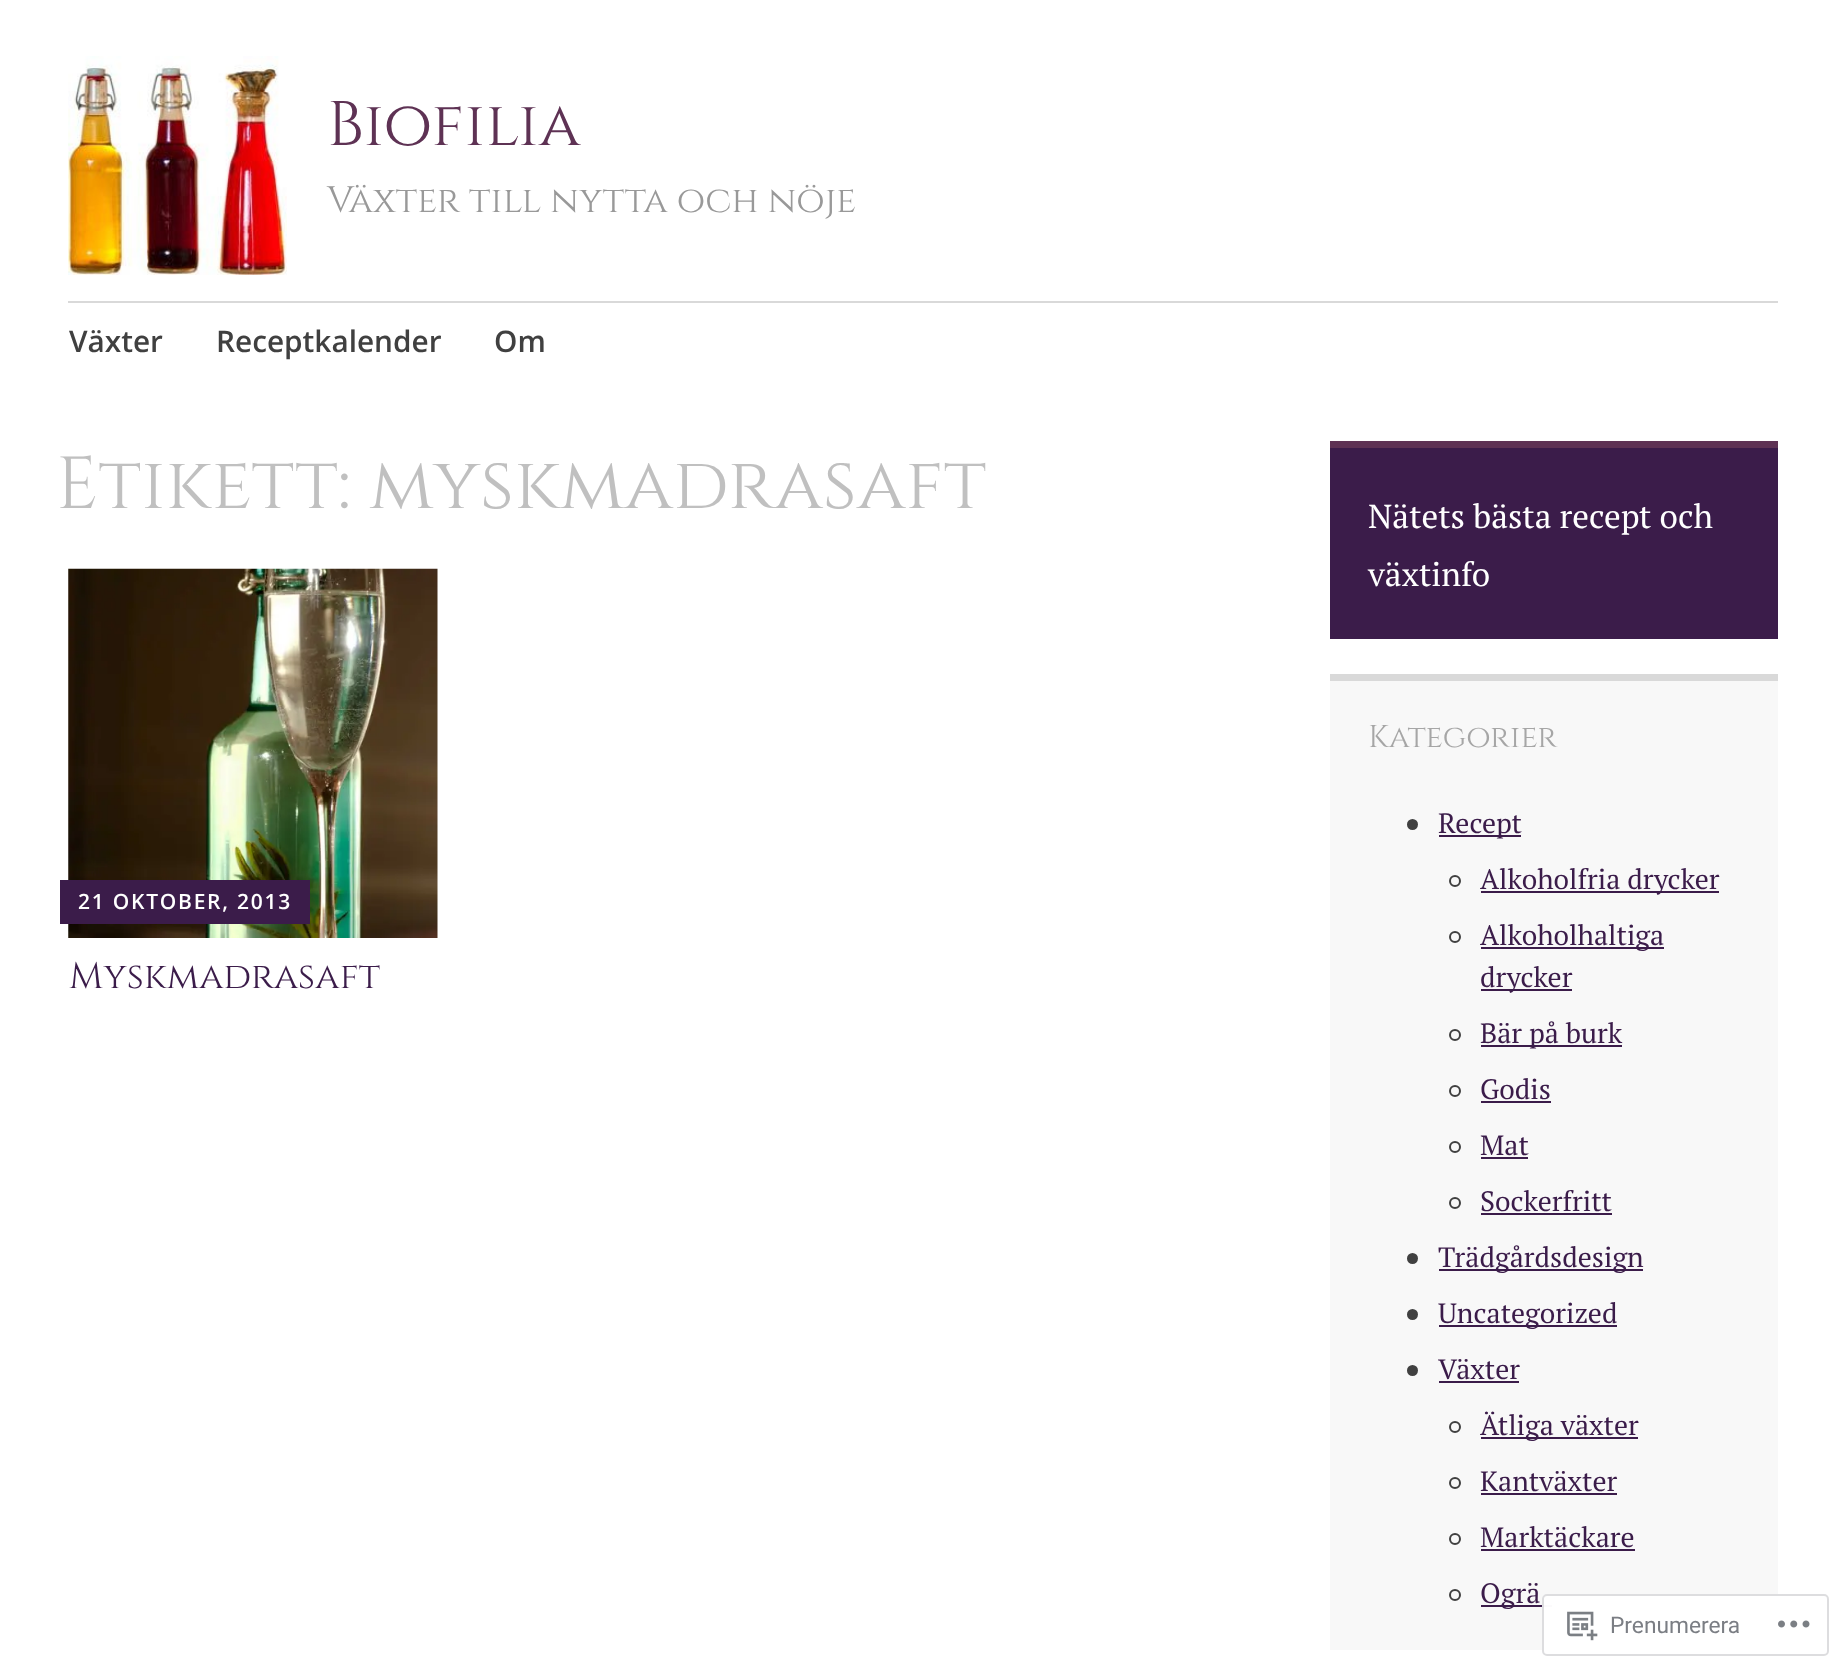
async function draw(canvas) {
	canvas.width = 1846;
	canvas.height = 1672;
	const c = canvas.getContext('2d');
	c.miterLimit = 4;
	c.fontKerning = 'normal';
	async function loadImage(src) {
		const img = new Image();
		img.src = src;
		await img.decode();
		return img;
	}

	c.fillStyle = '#fff';
	c.fillRect(0, 0, 1846, 1672);
	c.drawImage(await loadImage('img1.png'), 68, 56, 219, 219);
	c.font = '63px Cinzel';
	c.fillStyle = '#5e3254';
	c.fillText('Biofilia', 327, 145);
	c.font = '36.75px Cinzel';
	c.fillStyle = '#999';
	c.fillText('Växter till nytta och nöje', 327, 212);
	c.fillStyle = '#d9d9d9';
	c.fillRect(68, 301, 1710, 2);
	c.font = '600 29.75px Open Sans';
	c.fillStyle = '#404040';
	for (const [text, x, y] of [
		['Växter', 69, 352],
		['Receptkalender', 216, 352],
		['Om', 494, 352],
	]) {
		c.fillText(text, x, y);
	}
	c.font = '73.5px Cinzel';
	c.fillStyle = '#c0c0c0';
	c.fillText('Etikett: myskmadrasaft', 56, 508);
	c.drawImage(await loadImage('img2.png'), 68, 568, 370, 370);
	c.fillStyle = '#3b1c4a';
	c.fillRect(60, 880, 250, 44);
	c.letterSpacing = '1.75px';
	c.font = '600 21px Open Sans';
	c.fillStyle = '#fff';
	c.fillText('21 OKTOBER, 2013', 78, 909);
	c.letterSpacing = '0px';
	c.font = '36.75px Cinzel';
	c.fillStyle = '#3b1c4a';
	c.fillText('Myskmadrasaft', 69, 988);
	c.fillRect(1330, 448, 448, 191);
	c.fillStyle = '#5e3254';
	c.fillRect(1330, 441, 448, 7);
	c.font = '33.25px PT Serif';
	c.fillStyle = '#fff';
	c.fillText('Nätets bästa recept och', 1368, 528);
	c.fillText('växtinfo', 1368, 586);
	c.fillStyle = '#f8f8f8';
	c.fillRect(1330, 681, 448, 969);
	c.fillStyle = '#d9d9d9';
	c.fillRect(1330, 674, 448, 7);
	c.font = '31.5px Cinzel';
	c.fillStyle = '#a6a6a6';
	c.fillText('Kategorier', 1368, 747);
	c.fillStyle = '#404040';
	c.beginPath();
	c.arc(1412.5, 824.5, 5.5, 0, 2 * Math.PI);
	c.fill();
	c.fillStyle = '#3b1c4a';
	c.fillRect(1439, 835, 82, 2);
	c.font = '28px PT Serif';
	c.fillText('Recept', 1438, 833);
	c.beginPath();
	c.arc(1455, 881, 5, 0, 2 * Math.PI);
	c.strokeStyle = '#404040';
	c.lineWidth = 2;
	c.stroke();
	c.fillRect(1481, 891, 238, 2);
	c.fillText('Alkoholfria drycker', 1480, 889);
	c.beginPath();
	c.arc(1455, 937, 5, 0, 2 * Math.PI);
	c.stroke();
	c.fillRect(1481, 947, 183, 2);
	c.fillText('Alkoholhaltiga', 1480, 945);
	c.fillRect(1481, 989, 91, 2);
	c.fillText('drycker', 1480, 987);
	c.beginPath();
	c.arc(1455, 1035, 5, 0, 2 * Math.PI);
	c.stroke();
	c.fillRect(1481, 1045, 141, 2);
	c.fillText('Bär på burk', 1480, 1043);
	c.beginPath();
	c.arc(1455, 1091, 5, 0, 2 * Math.PI);
	c.stroke();
	c.fillText('Godis', 1480, 1099);
	c.fillRect(1481, 1101, 70, 2);
	c.beginPath();
	c.arc(1455, 1147, 5, 0, 2 * Math.PI);
	c.stroke();
	c.fillText('Mat', 1480, 1155);
	c.fillRect(1481, 1157, 47, 2);
	c.beginPath();
	c.arc(1455, 1203, 5, 0, 2 * Math.PI);
	c.stroke();
	c.fillText('Sockerfritt', 1480, 1211);
	c.fillRect(1481, 1213, 131, 2);
	c.fillStyle = '#404040';
	c.beginPath();
	c.arc(1412.5, 1258.5, 5.5, 0, 2 * Math.PI);
	c.fill();
	c.fillStyle = '#3b1c4a';
	c.fillRect(1439, 1269, 204, 2);
	c.fillText('Trädgårdsdesign', 1438, 1267);
	c.fillStyle = '#404040';
	c.beginPath();
	c.arc(1412.5, 1314.5, 5.5, 0, 2 * Math.PI);
	c.fill();
	c.fillStyle = '#3b1c4a';
	c.fillRect(1439, 1325, 178, 2);
	c.fillText('Uncategorized', 1438, 1323);
	c.fillStyle = '#404040';
	c.beginPath();
	c.arc(1412.5, 1370.5, 5.5, 0, 2 * Math.PI);
	c.fill();
	c.fillStyle = '#3b1c4a';
	c.fillText('Växter', 1438, 1379);
	c.fillRect(1439, 1381, 80, 2);
	c.beginPath();
	c.arc(1455, 1427, 5, 0, 2 * Math.PI);
	c.stroke();
	c.fillRect(1481, 1437, 157, 2);
	c.fillText('Ätliga växter', 1480, 1435);
	c.beginPath();
	c.arc(1455, 1483, 5, 0, 2 * Math.PI);
	c.stroke();
	c.fillText('Kantväxter', 1480, 1491);
	c.fillRect(1481, 1493, 136, 2);
	c.beginPath();
	c.arc(1455, 1539, 5, 0, 2 * Math.PI);
	c.stroke();
	c.fillText('Marktäckare', 1480, 1547);
	c.fillRect(1481, 1549, 154, 2);
	c.beginPath();
	c.arc(1455, 1595, 5, 0, 2 * Math.PI);
	c.stroke();
	c.fillRect(1481, 1605, 71, 2);
	c.fillText('Ogrä', 1480, 1603);
	c.fillStyle = '#fffffffa';
	c.beginPath();
	c.roundRect(1542, 1594, 287, 62, 5);
	c.fill();
	c.beginPath();
	c.roundRect(1543, 1595, 285, 60, 4);
	c.strokeStyle = '#dcdcdefa';
	c.stroke();
	c.drawImage(await loadImage('img3.png'), 1567, 1611, 31, 30);
	c.font = '22.75px Roboto';
	c.fillStyle = '#7b7e84';
	c.fillText('Prenumerera', 1610, 1633);
	c.drawImage(await loadImage('img4.png'), 1778, 1620, 32, 8);
}

draw(document.querySelector('canvas'));
